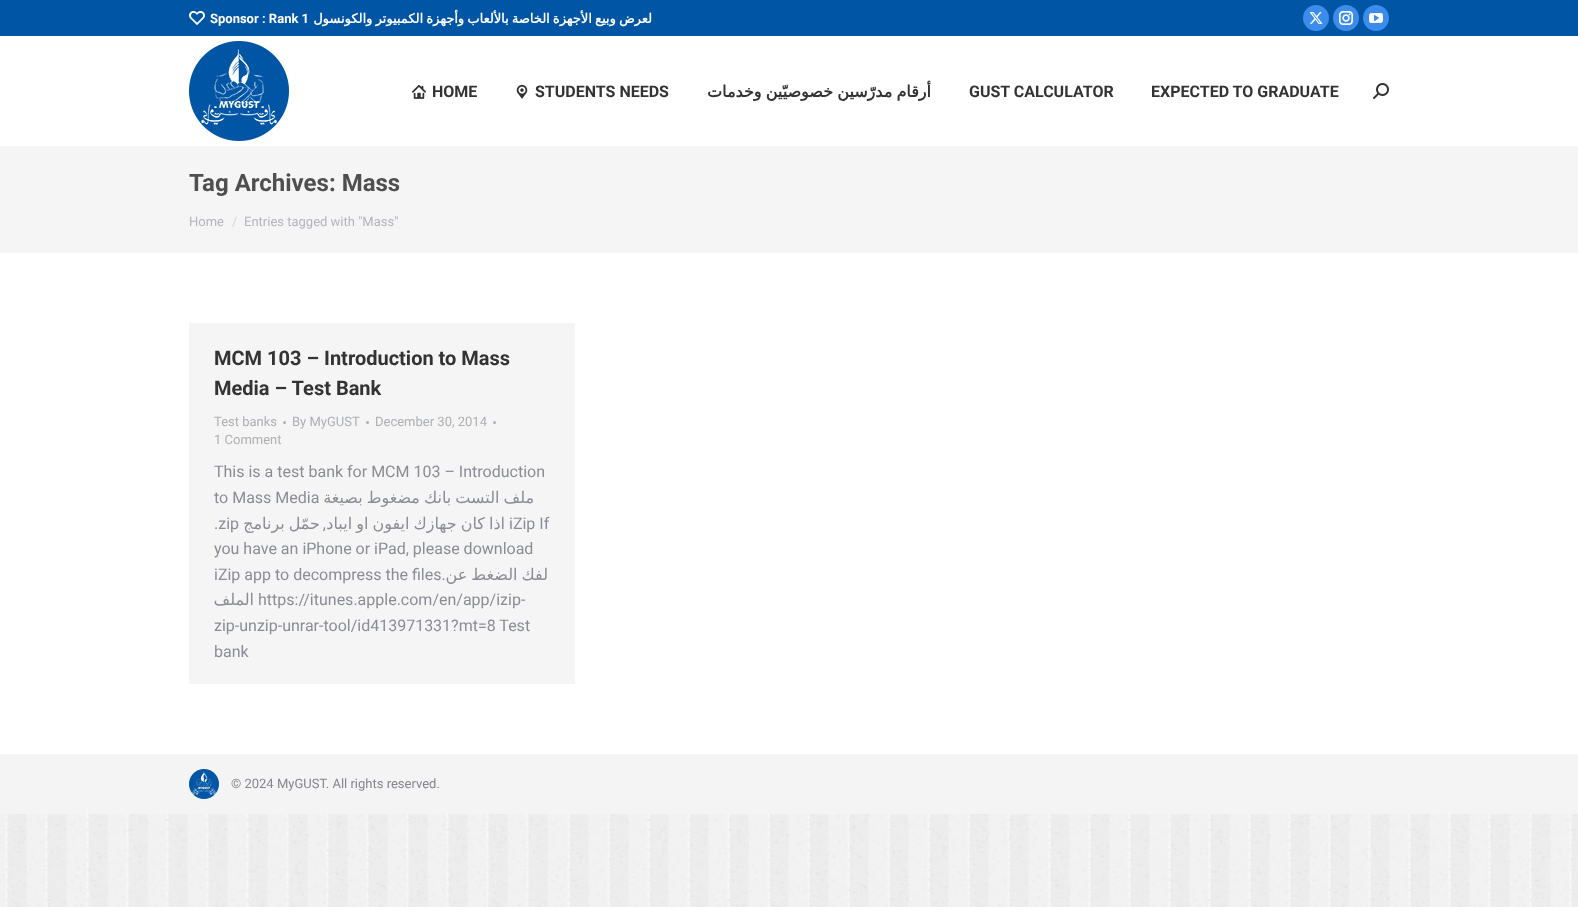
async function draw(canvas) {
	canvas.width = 1578;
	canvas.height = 907;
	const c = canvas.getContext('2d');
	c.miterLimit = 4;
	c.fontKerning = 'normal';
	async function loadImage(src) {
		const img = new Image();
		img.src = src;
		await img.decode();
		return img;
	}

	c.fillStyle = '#fff';
	c.fillRect(0, 0, 1578, 907);
	c.drawImage(await loadImage('img1.png'), 0, 814, 1578, 93);
	c.fillStyle = '#0055a4';
	c.fillRect(0, 0, 1578, 36);
	c.drawImage(await loadImage('img2.png'), 189, 11, 16, 14);
	c.font = 'bold 13px Roboto';
	c.fillStyle = '#fff';
	c.fillText('Sponsor : Rank 1', 210, 23);
	c.wordSpacing = '-1px';
	c.direction = 'rtl';
	c.font = 'bold 13px DejaVu Sans';
	c.fillText('لعرض وبيع الأجهزة الخاصة بالألعاب وأجهزة الكمبيوتر والكونسول', 652, 23);
	c.fillStyle = '#3b8ced';
	c.beginPath();
	c.arc(1316, 18, 13, 0, 2 * Math.PI);
	c.fill();
	c.drawImage(await loadImage('img3.png'), 1309, 12, 14, 12);
	c.beginPath();
	c.arc(1346, 18, 13, 0, 2 * Math.PI);
	c.fill();
	c.drawImage(await loadImage('img4.png'), 1339, 11, 14, 14);
	c.beginPath();
	c.arc(1376, 18, 13, 0, 2 * Math.PI);
	c.fill();
	c.drawImage(await loadImage('img5.png'), 1369, 13, 14, 10);
	c.drawImage(await loadImage('img6.png'), 189, 41, 100, 100);
	c.drawImage(await loadImage('img7.png'), 412, 84, 14, 15);
	c.wordSpacing = '0px';
	c.direction = 'ltr';
	c.font = 'bold 16px Roboto';
	c.fillStyle = '#333';
	c.fillText('HOME', 432, 97);
	c.drawImage(await loadImage('img8.png'), 516, 84, 12, 15);
	c.fillText('STUDENTS NEEDS', 535, 97);
	c.wordSpacing = '-1px';
	c.direction = 'rtl';
	c.font = 'bold 16px DejaVu Sans';
	c.fillText('أرقام مدرّسين خصوصيّين وخدمات', 931, 97);
	c.wordSpacing = '0px';
	c.direction = 'ltr';
	c.font = 'bold 16px Roboto';
	c.fillText('GUST CALCULATOR', 969, 97);
	c.fillText('EXPECTED TO GRADUATE', 1151, 97);
	c.drawImage(await loadImage('img9.png'), 1373, 83, 16, 16);
	c.fillStyle = '#f5f5f5';
	c.fillRect(0, 146, 1578, 107);
	c.font = 'bold 24px Roboto';
	c.fillStyle = '#4f4f4f';
	c.fillText('Tag Archives: Mass', 189, 191);
	c.font = '13px Roboto';
	c.fillStyle = '#b4b5bb';
	c.fillText('Home', 189, 226);
	c.fillStyle = '#d5d5d8';
	c.fillText('/', 232, 226);
	c.fillStyle = '#b4b5bb';
	c.fillText('Entries tagged with "Mass"', 244, 226);
	c.fillStyle = '#f5f5f5';
	c.fillRect(189, 323, 386, 361);
	c.font = 'bold 20px Roboto';
	c.fillStyle = '#333';
	c.fillText('MCM 103 – Introduction to Mass', 214, 365);
	c.fillText('Media – Test Bank', 214, 395);
	c.font = '13px Roboto';
	c.fillStyle = '#adafb3';
	c.fillText('Test banks', 214, 426);
	c.beginPath();
	c.arc(284.5, 422.5, 1.5, 0, 2 * Math.PI);
	c.fill();
	c.fillText('By MyGUST', 292, 426);
	c.beginPath();
	c.arc(367.5, 422.5, 1.5, 0, 2 * Math.PI);
	c.fill();
	c.fillText('December 30, 2014', 375, 426);
	c.beginPath();
	c.arc(494.5, 422.5, 1.5, 0, 2 * Math.PI);
	c.fill();
	c.fillText('1 Comment', 214, 444);
	c.font = '16px Roboto';
	c.fillStyle = '#8b8d94';
	c.fillText('This is a test bank for MCM 103 – Introduction', 214, 477);
	c.fillText('to Mass Media', 214, 503);
	c.wordSpacing = '-1px';
	c.direction = 'rtl';
	c.font = '16px DejaVu Sans';
	c.fillText('ملف التست بانك مضغوط بصيغة', 534, 503);
	c.wordSpacing = '0px';
	c.direction = 'ltr';
	c.font = '16px Roboto';
	c.fillText('.zip', 214, 529);
	c.wordSpacing = '-1px';
	c.direction = 'rtl';
	c.font = '16px DejaVu Sans';
	c.fillText('حمّل برنامج', 320, 529);
	c.wordSpacing = '0px';
	c.font = '16px Roboto';
	c.fillText(',', 326, 529);
	c.wordSpacing = '-1px';
	c.font = '16px DejaVu Sans';
	c.fillText('اذا كان جهازك ايفون او ايباد', 505, 529);
	c.wordSpacing = '0px';
	c.direction = 'ltr';
	c.font = '16px Roboto';
	for (const [text, x, y] of [
		['iZip If', 509, 529],
		['you have an iPhone or iPad, please download', 214, 554],
		['iZip app to decompress the files.', 214, 580],
	]) {
		c.fillText(text, x, y);
	}
	c.wordSpacing = '-1px';
	c.direction = 'rtl';
	c.font = '16px DejaVu Sans';
	c.fillText('لفك الضغط عن', 548, 580);
	c.wordSpacing = '0px';
	c.fillText('الملف', 254, 605);
	c.direction = 'ltr';
	c.font = '16px Roboto';
	for (const [text, x, y] of [
		['https://itunes.apple.com/en/app/izip-', 258, 605],
		['zip-unzip-unrar-tool/id413971331?mt=8 Test', 214, 631],
		['bank', 214, 657],
	]) {
		c.fillText(text, x, y);
	}
	c.fillStyle = '#f4f4f4';
	c.fillRect(0, 754, 1578, 60);
	c.drawImage(await loadImage('img10.png'), 189, 769, 30, 30);
	c.font = '13px Roboto';
	c.fillStyle = '#85868c';
	c.fillText('© 2024 MyGUST. All rights reserved.', 231, 788);
}

draw(document.querySelector('canvas'));
